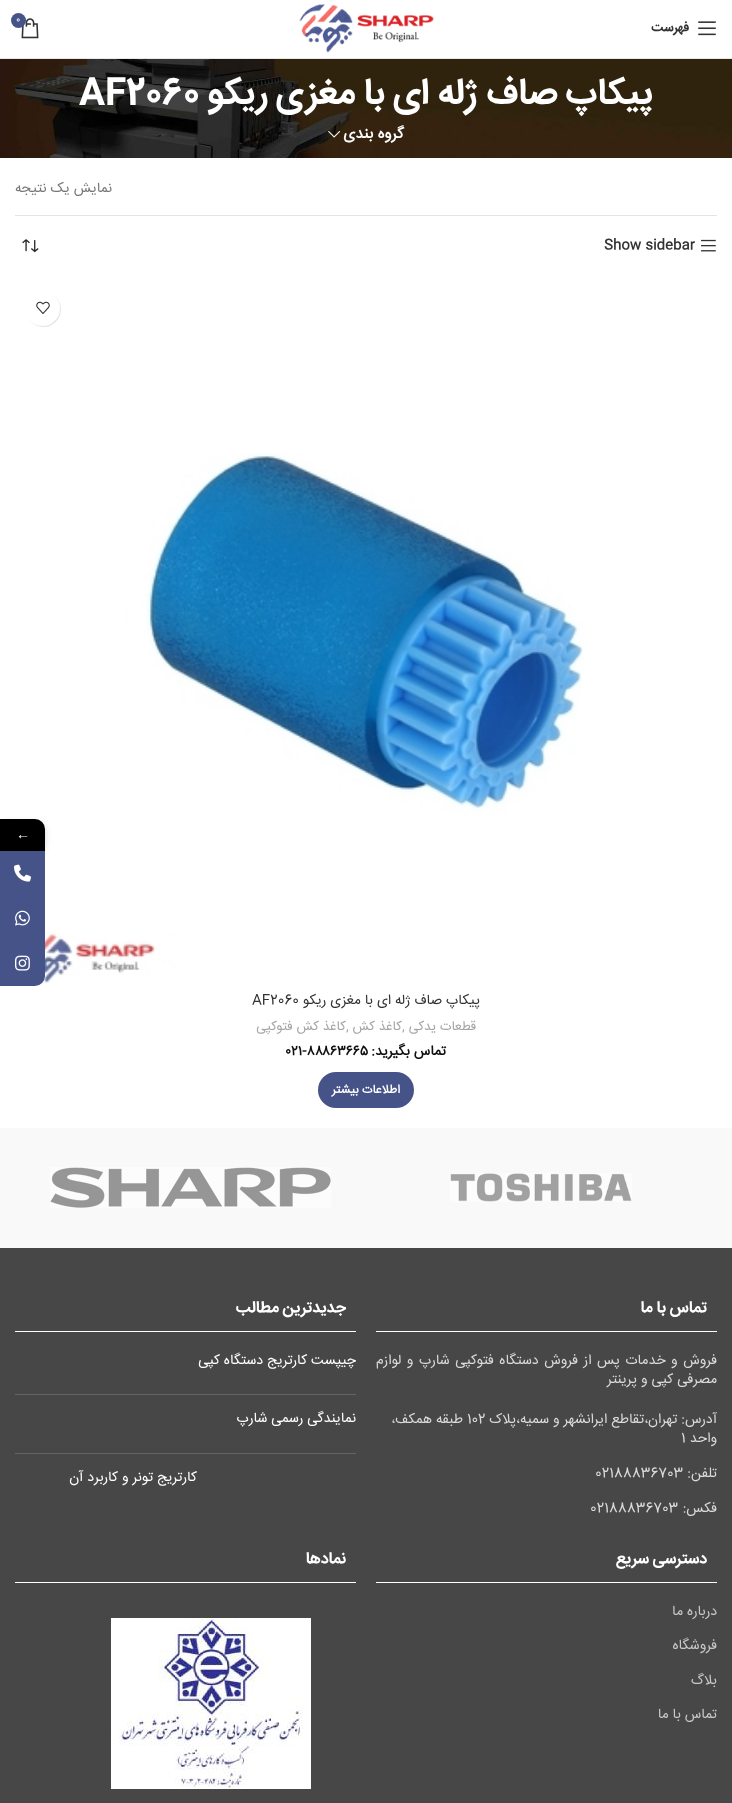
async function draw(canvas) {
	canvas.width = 732;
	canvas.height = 1803;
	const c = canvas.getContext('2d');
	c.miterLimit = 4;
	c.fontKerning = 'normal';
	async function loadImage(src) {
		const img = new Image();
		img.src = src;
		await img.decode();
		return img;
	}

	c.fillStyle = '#fff';
	c.fillRect(0, 0, 732, 1803);
	c.fillStyle = '#e8e8e8';
	c.fillRect(0, 58, 732, 1);
	c.drawImage(await loadImage('img1.png'), 299, 4, 135, 49);
	c.drawImage(await loadImage('img2.png'), 21, 18, 18, 21);
	c.fillStyle = '#465388';
	c.beginPath();
	c.arc(18.5, 20.5, 7.5, 0, 2 * Math.PI);
	c.fill();
	c.font = '9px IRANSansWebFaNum';
	c.fillStyle = '#fff';
	c.fillText('0', 16, 22);
	c.drawImage(await loadImage('img3.png'), 698, 21, 18, 15);
	c.direction = 'rtl';
	c.font = 'bold 13px IRANSansWebFaNum';
	c.fillStyle = '#333';
	c.fillText('فهرست', 689, 31);
	c.drawImage(await loadImage('img4.png'), 0, 59, 732, 99);
	c.font = 'bold 36px IRANSansWebFaNum';
	c.fillStyle = '#fff';
	c.fillText('پیکاپ صاف ژله ای با مغزی ریکو', 653, 103);
	c.direction = 'ltr';
	c.fillText('AF2060', 79, 103);
	c.direction = 'rtl';
	c.font = 'bold 15.5px "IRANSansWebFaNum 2"';
	c.fillText('گروه بندی', 404, 138);
	c.drawImage(await loadImage('img5.png'), 328, 131, 13, 7);
	c.fillStyle = '#e4e4e4';
	c.fillRect(15, 215, 702, 1);
	c.font = '14px IRANSansWebFaNum';
	c.fillStyle = '#777';
	c.fillText('نمایش یک نتیجه', 112, 192);
	c.drawImage(await loadImage('img6.png'), 701, 239, 15, 13);
	c.direction = 'ltr';
	c.font = 'bold 14px "IRANSansWebFaNum 2"';
	c.fillStyle = '#333';
	c.fillText('Show sidebar', 604, 249);
	c.drawImage(await loadImage('img7.png'), 22, 239, 17, 14);
	c.fillStyle = '#0000001a';
	c.filter = 'blur(0.5px)';
	c.beginPath();
	c.roundRect(26, 292, 35, 35, 17.5);
	c.fill();
	c.filter = 'none';
	c.fillStyle = '#fff';
	c.beginPath();
	c.arc(42.5, 308.5, 17.5, 0, 2 * Math.PI);
	c.fill();
	c.drawImage(await loadImage('img8.png'), 36, 301, 14, 13);
	c.drawImage(await loadImage('img9.png'), 17, 453, 567, 530);
	c.direction = 'rtl';
	c.font = '14px IRANSansWebFaNum';
	c.fillStyle = '#333';
	c.fillText('پیکاپ صاف ژله ای با مغزی ریکو', 480, 1004);
	c.direction = 'ltr';
	c.fillText('AF2060', 252, 1004);
	c.direction = 'rtl';
	c.font = '13.25px IRANSansWebFaNum';
	c.fillStyle = '#a5a5a5';
	c.fillText('قطعات یدکی', 476, 1030);
	c.direction = 'ltr';
	c.fillText(',', 402, 1030);
	c.direction = 'rtl';
	c.fillText('کاغذ کش', 402, 1030);
	c.direction = 'ltr';
	c.fillText(',', 346, 1030);
	c.direction = 'rtl';
	c.fillText('کاغذ کش فتوکپی', 346, 1030);
	c.font = 'bold 14px "IRANSansWebFaNum 2"';
	c.fillStyle = '#0f0f0f';
	c.fillText('تماس بگیرید:', 446, 1055);
	c.direction = 'ltr';
	c.fillText('۰۲۱-۸۸۸۶۳۶۶۵', 286, 1055);
	c.fillStyle = '#465388';
	c.beginPath();
	c.roundRect(318, 1072, 96, 36, 18);
	c.fill();
	c.direction = 'rtl';
	c.font = 'bold 12px "IRANSansWebFaNum 2"';
	c.fillStyle = '#fff';
	c.fillText('اطلاعات بیشتر', 400, 1093);
	c.fillStyle = '#f9f9f9';
	c.fillRect(0, 1128, 732, 120);
	c.drawImage(await loadImage('img10.png'), 450, 1173, 182, 29);
	c.drawImage(await loadImage('img11.png'), 50, 1167, 281, 41);
	c.fillStyle = '#474747';
	c.fillRect(0, 1248, 732, 555);
	c.fillStyle = '#fff';
	c.fillRect(376, 1331, 341, 1);
	c.font = 'bold 16px IRANSansWebFaNum';
	c.fillText('تماس با ما', 707, 1312);
	c.wordSpacing = '1.6px';
	c.font = '14px IRANSansWebFaNum';
	c.fillStyle = '#dadada';
	c.fillText('فروش و خدمات پس از فروش دستگاه فتوکپی شارپ و لوازم', 717, 1364);
	c.wordSpacing = '0px';
	c.fillText('مصرفی کپی و پرینتر', 717, 1383);
	c.fillText('آدرس: تهران،تقاطع ایرانشهر و سمیه،پلاک', 717, 1423);
	c.direction = 'ltr';
	c.fillText('102', 467, 1423);
	c.direction = 'rtl';
	c.fillText('طبقه همکف،', 463, 1423);
	c.fillText('واحد', 717, 1442);
	c.direction = 'ltr';
	c.fillText('1', 681, 1442);
	c.direction = 'rtl';
	c.fillText('تلفن:', 717, 1477);
	c.direction = 'ltr';
	c.fillText('02188836703', 595, 1477);
	c.direction = 'rtl';
	c.fillText('فکس:', 717, 1512);
	c.direction = 'ltr';
	c.fillText('02188836703', 590, 1512);
	c.fillStyle = '#fff';
	c.fillRect(15, 1331, 341, 1);
	c.direction = 'rtl';
	c.font = 'bold 16px IRANSansWebFaNum';
	c.fillText('جدیدترین مطالب', 346, 1312);
	c.fillStyle = '#636363';
	c.fillRect(15, 1394, 341, 1);
	c.font = '14px IRANSansWebFaNum';
	c.fillStyle = '#fff';
	c.fillText('چیپست کارتریج دستگاه کپی', 356, 1364);
	c.fillStyle = '#636363';
	c.fillRect(15, 1453, 341, 1);
	c.fillStyle = '#fff';
	c.fillText('نمایندگی رسمی شارپ', 356, 1422);
	c.fillText('کارتریج تونر و کاربرد آن', 197, 1481);
	c.fillRect(376, 1582, 341, 1);
	c.font = 'bold 16px IRANSansWebFaNum';
	c.fillText('دسترسی سریع', 707, 1563);
	c.font = '14px IRANSansWebFaNum';
	c.fillStyle = '#c8c8c8';
	for (const [text, x, y] of [
		['درباره ما', 717, 1615],
		['فروشگاه', 717, 1649],
		['بلاگ', 717, 1684],
		['تماس با ما', 717, 1718],
	]) {
		c.fillText(text, x, y);
	}
	c.fillStyle = '#fff';
	c.fillRect(15, 1582, 341, 1);
	c.font = 'bold 16px IRANSansWebFaNum';
	c.fillText('نمادها', 346, 1563);
	c.drawImage(await loadImage('img12.png'), 111, 1618, 200, 171);
	c.fillStyle = '#00000029';
	c.filter = 'blur(3px)';
	c.beginPath();
	c.roundRect(0, 822, 45, 32, 10);
	c.fill();
	c.filter = 'none';
	c.fillStyle = '#000';
	c.beginPath();
	c.roundRect(0, 819, 45, 32, [0, 10, 0, 0]);
	c.fill();
	c.direction = 'ltr';
	c.font = '14px Liberation Serif';
	c.fillStyle = '#fff';
	c.fillText('←', 16, 839);
	c.fillStyle = '#465388';
	c.fillRect(0, 851, 45, 90);
	c.drawImage(await loadImage('img13.png'), 14, 864, 17, 18);
	c.drawImage(await loadImage('img14.png'), 15, 910, 15, 16);
	c.beginPath();
	c.roundRect(0, 941, 45, 45, [0, 0, 10, 0]);
	c.fill();
	c.drawImage(await loadImage('img15.png'), 15, 955, 15, 16);
}

draw(document.querySelector('canvas'));
